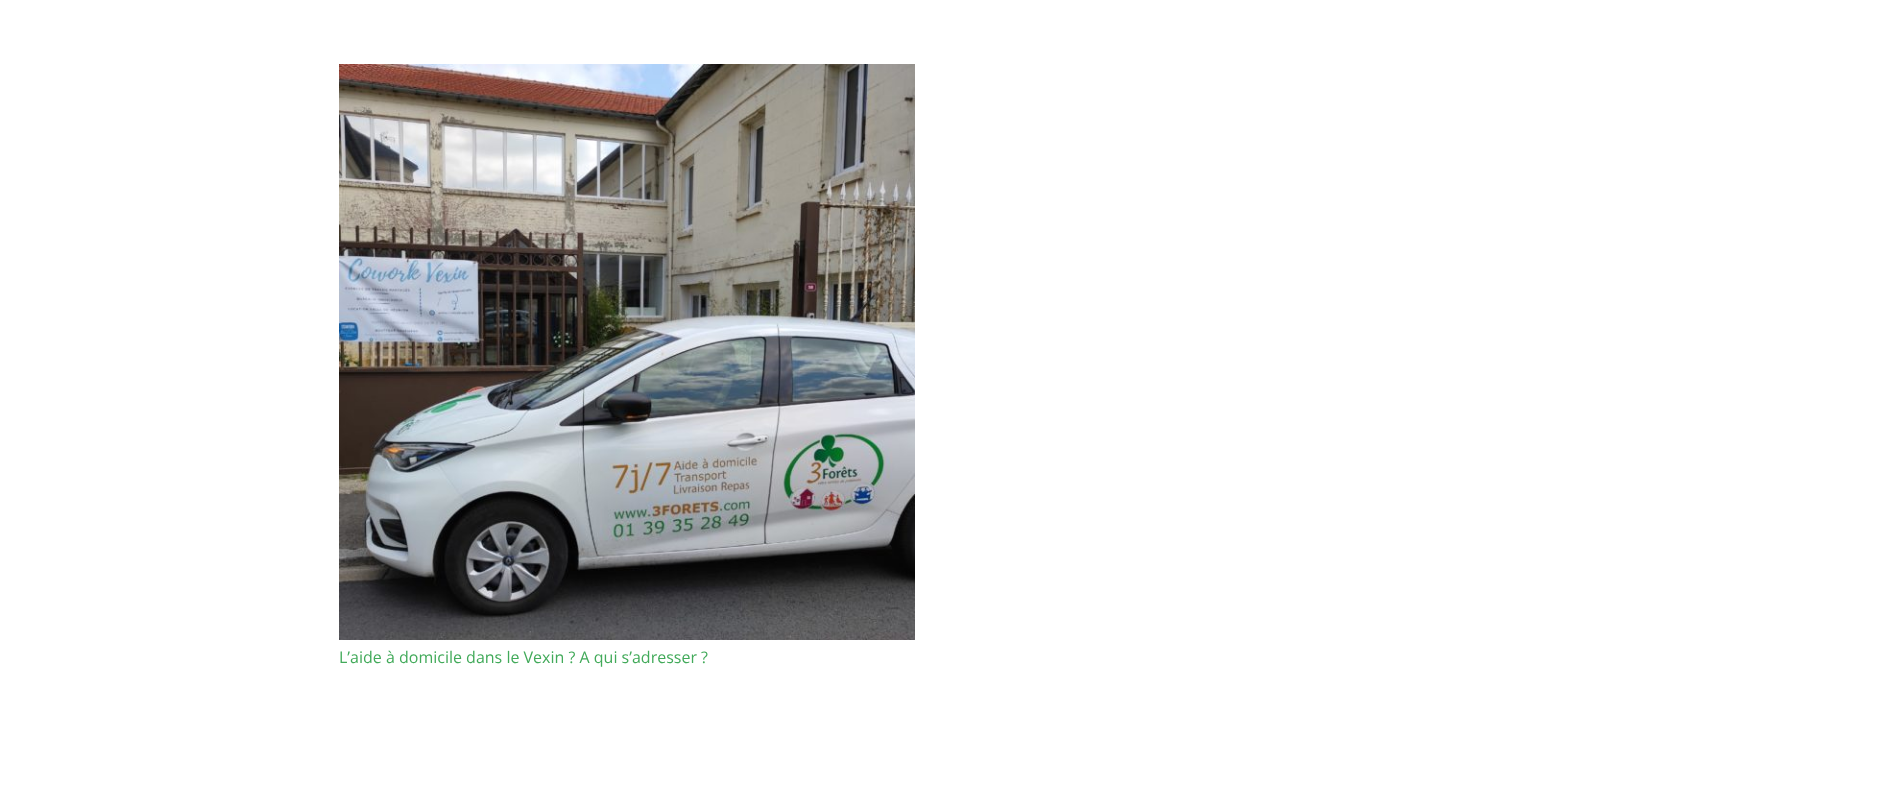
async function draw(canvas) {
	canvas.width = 1877;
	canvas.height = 786;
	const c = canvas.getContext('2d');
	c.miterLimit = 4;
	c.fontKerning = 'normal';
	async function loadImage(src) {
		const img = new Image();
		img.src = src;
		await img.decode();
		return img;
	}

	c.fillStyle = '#fff';
	c.fillRect(0, 0, 1877, 786);
	c.drawImage(await loadImage('img1.png'), 339, 64, 576, 576);
	c.font = '16px Open Sans';
	c.fillStyle = '#42aa5a';
	c.fillText('L’aide à domicile dans le Vexin ? A qui s’adresser ?', 339, 663);
}

draw(document.querySelector('canvas'));
